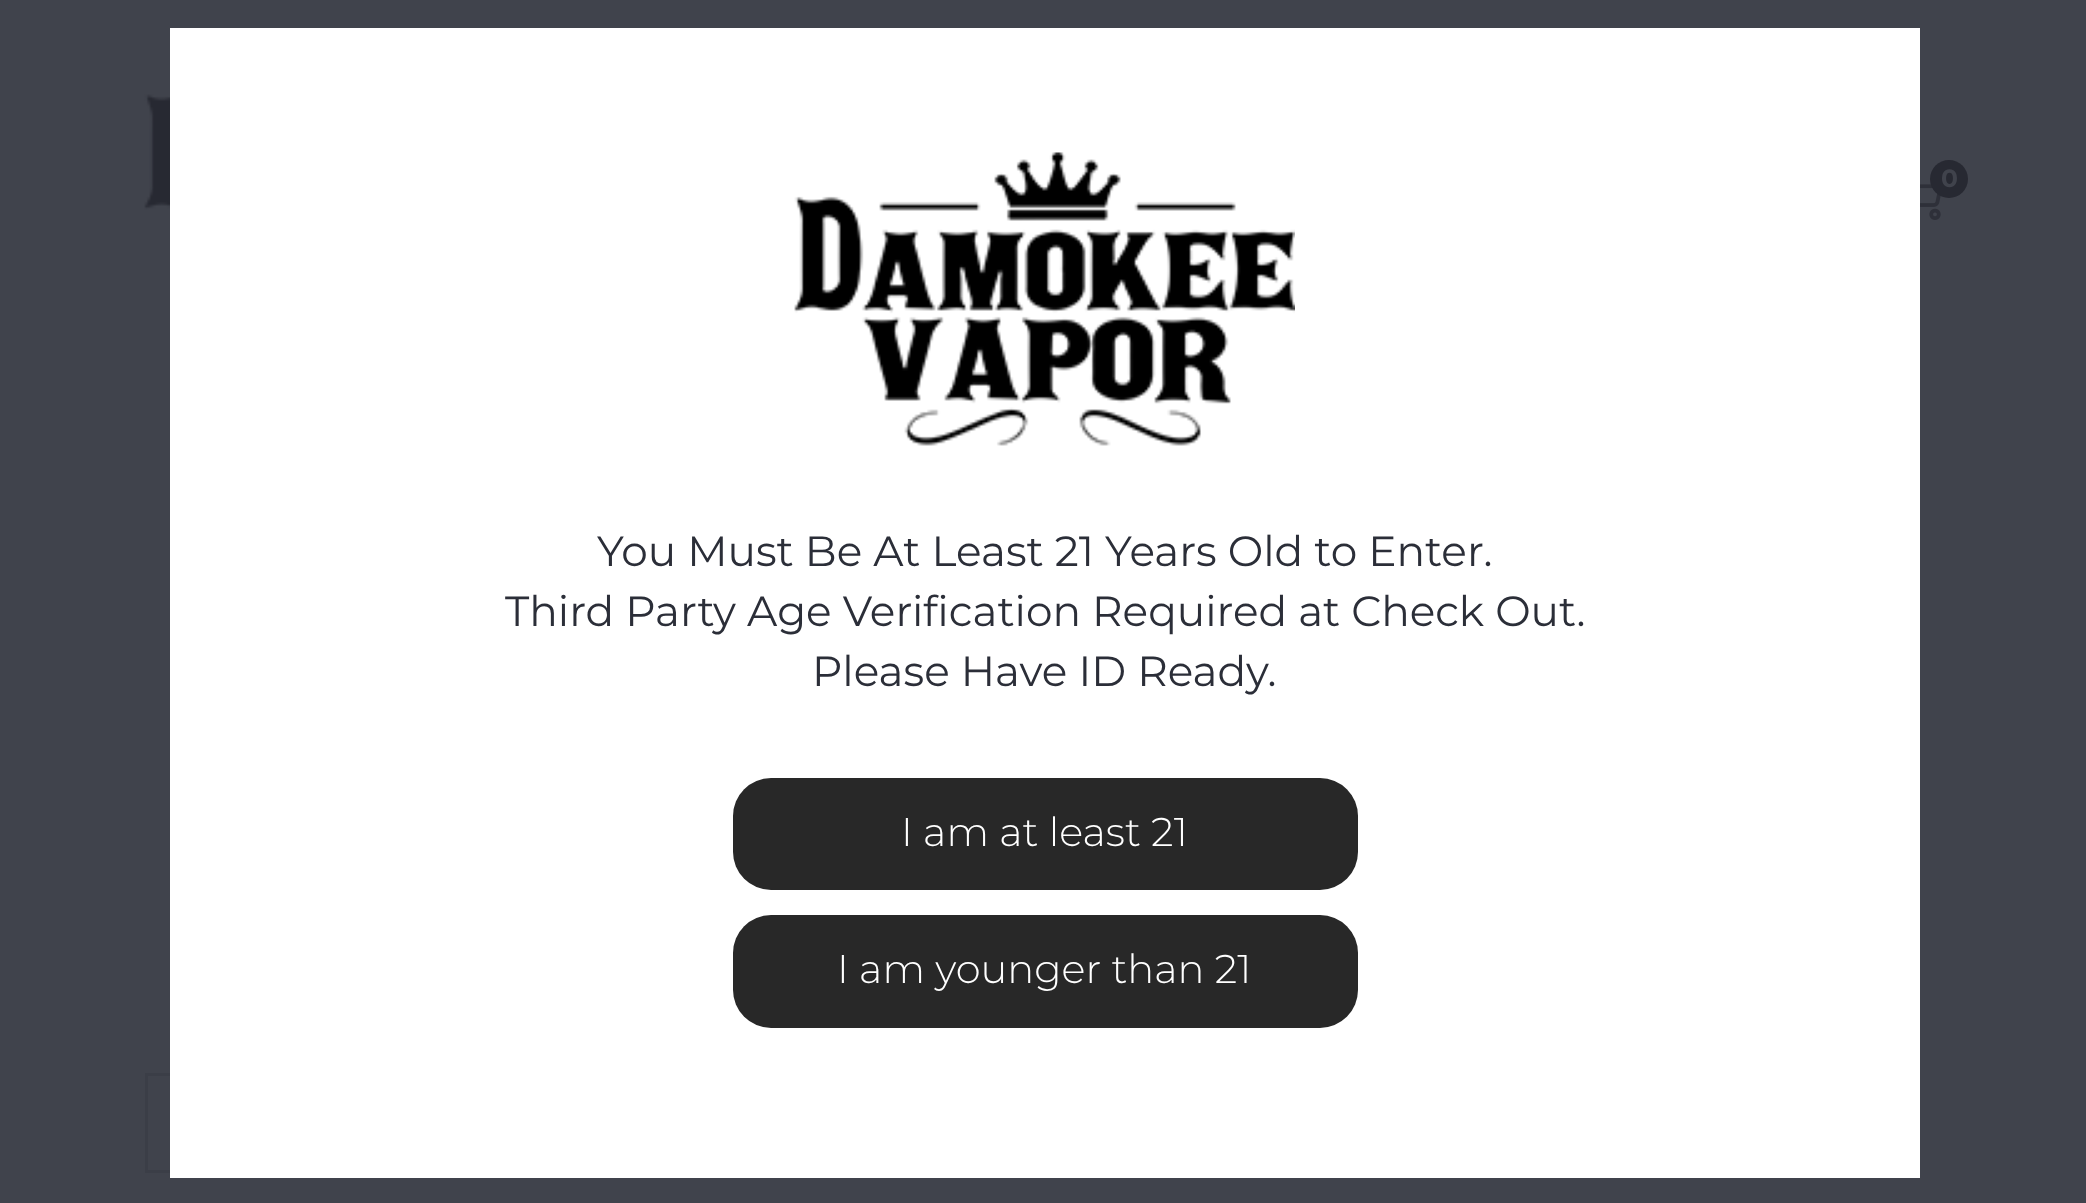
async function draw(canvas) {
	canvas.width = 2086;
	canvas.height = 1203;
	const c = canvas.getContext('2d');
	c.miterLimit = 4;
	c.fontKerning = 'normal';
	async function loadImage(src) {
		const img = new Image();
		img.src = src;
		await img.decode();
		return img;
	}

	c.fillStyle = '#40434c';
	c.fillRect(0, 0, 2086, 1203);
	c.drawImage(await loadImage('img1.png'), 144, 94, 26, 116);
	c.drawImage(await loadImage('img2.png'), 1920, 184, 21, 36);
	c.fillStyle = '#272932';
	c.beginPath();
	c.arc(1949, 179, 19, 0, 2 * Math.PI);
	c.fill();
	c.font = 'bold 25px Montserrat';
	c.fillStyle = '#40434c';
	c.fillText('0', 1941, 187);
	c.strokeStyle = '#3b3e47';
	c.lineWidth = 3;
	c.strokeRect(146.5, 1074.5, 497, 97);
	c.fillStyle = '#fff';
	c.fillRect(170, 28, 1750, 1150);
	c.drawImage(await loadImage('img3.png'), 794, 152, 501, 294);
	c.font = '42.25px Montserrat';
	c.fillStyle = '#2b2e38';
	for (const [text, x, y] of [
		['You Must Be At Least 21 Years Old to Enter.', 597, 566],
		['Third Party Age Verification Required at Check Out.', 505, 626],
		['Please Have ID Ready.', 812, 686],
	]) {
		c.fillText(text, x, y);
	}
	c.fillStyle = '#282828';
	c.beginPath();
	c.roundRect(733, 778, 625, 112, 38);
	c.fill();
	c.font = '300 40px Montserrat';
	c.fillStyle = '#fff';
	c.fillText('I am at least 21', 901, 846);
	c.fillStyle = '#282828';
	c.beginPath();
	c.roundRect(733, 915, 625, 113, 38);
	c.fill();
	c.fillStyle = '#fff';
	c.fillText('I am younger than 21', 837, 983);
}

draw(document.querySelector('canvas'));
